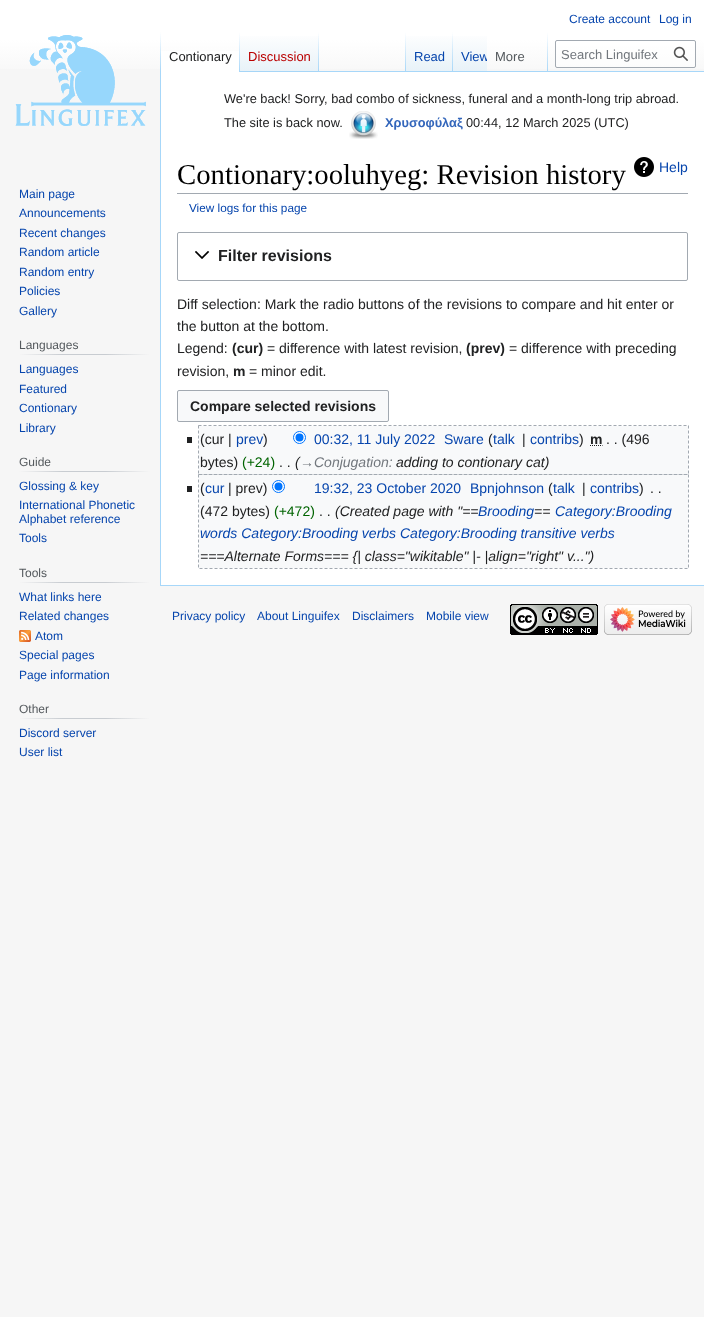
async function draw(canvas) {
	canvas.width = 704;
	canvas.height = 1317;
	const c = canvas.getContext('2d');
	c.miterLimit = 4;
	c.fontKerning = 'normal';
	async function loadImage(src) {
		const img = new Image();
		img.src = src;
		await img.decode();
		return img;
	}
	let gradient;

	c.fillStyle = '#f6f6f6';
	c.fillRect(0, 0, 704, 1317);
	gradient = c.createLinearGradient(352, 0, 352, 80);
	gradient.addColorStop(0.5, '#fff');
	gradient.addColorStop(1, '#f6f6f6');
	c.fillStyle = gradient;
	c.fillRect(0, 0, 704, 69);
	c.font = '12px Liberation Sans';
	c.fillStyle = '#0645ad';
	c.fillText('Create account', 569, 23);
	c.fillText('Log in', 659, 23);
	c.fillStyle = '#a7d7f9';
	c.fillRect(160, 585, 544, 1);
	c.fillRect(160, 71, 1, 515);
	gradient = c.createLinearGradient(161, 32, 161, 72);
	gradient.addColorStop(0, '#a7d7f900');
	gradient.addColorStop(1, '#a7d7f9');
	c.fillStyle = gradient;
	c.fillRect(160, 32, 1, 40);
	c.fillStyle = '#fff';
	c.fillRect(161, 51, 78, 21);
	gradient = c.createLinearGradient(240, 32, 240, 72);
	gradient.addColorStop(0, '#fff');
	gradient.addColorStop(1, '#a7d7f9');
	c.fillStyle = gradient;
	c.fillRect(239, 32, 1, 40);
	c.font = '13px Liberation Sans';
	c.fillStyle = '#202122';
	c.fillText('Contionary', 169, 61);
	gradient = c.createLinearGradient(280, 72, 280, 32);
	gradient.addColorStop(0, '#77c1f6');
	gradient.addColorStop(0.03, '#e8f2f8');
	gradient.addColorStop(1, '#fff');
	c.fillStyle = gradient;
	c.fillRect(240, 36, 79, 36);
	gradient = c.createLinearGradient(319, 32, 319, 72);
	gradient.addColorStop(0, '#a7d7f900');
	gradient.addColorStop(1, '#a7d7f9');
	c.fillStyle = gradient;
	c.fillRect(318, 32, 1, 40);
	c.fillStyle = '#ba0000';
	c.fillText('Discussion', 248, 61);
	c.fillStyle = '#a7d7f9';
	c.fillRect(319, 71, 385, 1);
	gradient = c.createLinearGradient(406, 32, 406, 72);
	gradient.addColorStop(0, '#a7d7f900');
	gradient.addColorStop(1, '#a7d7f9');
	c.fillStyle = gradient;
	c.fillRect(405, 32, 1, 40);
	gradient = c.createLinearGradient(430, 72, 430, 32);
	gradient.addColorStop(0, '#77c1f6');
	gradient.addColorStop(0.03, '#e8f2f8');
	gradient.addColorStop(1, '#fff');
	c.fillStyle = gradient;
	c.fillRect(406, 36, 47, 35);
	gradient = c.createLinearGradient(453, 32, 453, 72);
	gradient.addColorStop(0, '#a7d7f900');
	gradient.addColorStop(1, '#a7d7f9');
	c.fillStyle = gradient;
	c.fillRect(452, 32, 1, 40);
	c.fillStyle = '#0645ad';
	c.fillText('Read', 414, 61);
	gradient = c.createLinearGradient(470, 72, 470, 32);
	gradient.addColorStop(0, '#77c1f6');
	gradient.addColorStop(0.03, '#e8f2f8');
	gradient.addColorStop(1, '#fff');
	c.fillStyle = gradient;
	c.fillRect(453, 36, 34, 35);
	c.save();
	c.beginPath();
	c.rect(453, 32, 34, 40);
	c.clip();
	c.fillStyle = '#0645ad';
	c.fillText('View', 461, 61);
	c.restore();
	gradient = c.createLinearGradient(548, 32, 548, 72);
	gradient.addColorStop(0, '#a7d7f900');
	gradient.addColorStop(1, '#a7d7f9');
	c.fillStyle = gradient;
	c.fillRect(547, 32, 1, 40);
	c.fillStyle = '#54595d';
	c.fillText('More', 495, 61);
	c.fillStyle = '#ffffff80';
	c.beginPath();
	c.roundRect(555.5, 40.5, 140, 27, 1.5);
	c.fill();
	c.strokeStyle = '#a2a9b1';
	c.stroke();
	c.fillStyle = '#72777d';
	c.fillText('Search Linguifex', 561, 59);
	c.drawImage(await loadImage('img1.png'), 673, 46, 15, 15);
	c.drawImage(await loadImage('img2.png'), 15, 35, 131, 91);
	c.font = '12px Liberation Sans';
	c.fillStyle = '#0645ad';
	for (const [text, x, y] of [
		['Main page', 19, 198],
		['Announcements', 19, 217],
		['Recent changes', 19, 237],
		['Random article', 19, 256],
		['Random entry', 19, 276],
		['Policies', 19, 295],
		['Gallery', 19, 315],
	]) {
		c.fillText(text, x, y);
	}
	gradient = c.createLinearGradient(19, 355, 150, 355);
	gradient.addColorStop(0, '#f6f6f6');
	gradient.addColorStop(0.33, '#c8ccd1');
	gradient.addColorStop(0.66, '#c8ccd1');
	gradient.addColorStop(1, '#f6f6f6');
	c.fillStyle = gradient;
	c.fillRect(19, 354, 131, 1);
	c.fillStyle = '#54595d';
	c.fillText('Languages', 19, 349);
	c.fillStyle = '#0645ad';
	for (const [text, x, y] of [
		['Languages', 19, 373],
		['Featured', 19, 393],
		['Contionary', 19, 412],
		['Library', 19, 432],
	]) {
		c.fillText(text, x, y);
	}
	gradient = c.createLinearGradient(19, 472, 150, 472);
	gradient.addColorStop(0, '#f6f6f6');
	gradient.addColorStop(0.33, '#c8ccd1');
	gradient.addColorStop(0.66, '#c8ccd1');
	gradient.addColorStop(1, '#f6f6f6');
	c.fillStyle = gradient;
	c.fillRect(19, 471, 131, 1);
	c.fillStyle = '#54595d';
	c.fillText('Guide', 19, 466);
	c.fillStyle = '#0645ad';
	for (const [text, x, y] of [
		['Glossing & key', 19, 490],
		['International Phonetic', 19, 509],
		['Alphabet reference', 19, 523],
		['Tools', 19, 542],
	]) {
		c.fillText(text, x, y);
	}
	gradient = c.createLinearGradient(19, 583, 150, 583);
	gradient.addColorStop(0, '#f6f6f6');
	gradient.addColorStop(0.33, '#c8ccd1');
	gradient.addColorStop(0.66, '#c8ccd1');
	gradient.addColorStop(1, '#f6f6f6');
	c.fillStyle = gradient;
	c.fillRect(19, 582, 131, 1);
	c.fillStyle = '#54595d';
	c.fillText('Tools', 19, 577);
	c.fillStyle = '#0645ad';
	c.fillText('What links here', 19, 601);
	c.fillText('Related changes', 19, 620);
	c.drawImage(await loadImage('img3.png'), 19, 630, 12, 12);
	for (const [text, x, y] of [
		['Atom', 35, 640],
		['Special pages', 19, 659],
		['Page information', 19, 679],
	]) {
		c.fillText(text, x, y);
	}
	gradient = c.createLinearGradient(19, 719, 150, 719);
	gradient.addColorStop(0, '#f6f6f6');
	gradient.addColorStop(0.33, '#c8ccd1');
	gradient.addColorStop(0.66, '#c8ccd1');
	gradient.addColorStop(1, '#f6f6f6');
	c.fillStyle = gradient;
	c.fillRect(19, 718, 131, 1);
	c.fillStyle = '#54595d';
	c.fillText('Other', 19, 713);
	c.fillStyle = '#0645ad';
	c.fillText('Discord server', 19, 737);
	c.fillText('User list', 19, 756);
	c.fillStyle = '#fff';
	c.fillRect(161, 72, 543, 513);
	c.font = '12.8px Liberation Sans';
	c.fillStyle = '#202122';
	c.fillText('We\'re back! Sorry, bad combo of sickness, funeral and a month-long trip abroad.', 224, 103);
	c.fillText('The site is back now.', 224, 127);
	c.drawImage(await loadImage('img4.png'), 349, 111, 29, 28);
	c.font = 'bold 12.8px Liberation Sans';
	c.fillStyle = '#36b';
	c.fillText('Χρυσοφύλαξ', 385, 127);
	c.font = '12.8px Liberation Sans';
	c.fillStyle = '#202122';
	c.fillText('00:44, 12 March 2025 (UTC)', 466, 127);
	c.fillStyle = '#a2a9b1';
	c.fillRect(177, 193, 511, 1);
	c.font = '28.75px Liberation Serif';
	c.fillStyle = '#000';
	c.fillText('Contionary:ooluhyeg: Revision history', 177, 184);
	c.drawImage(await loadImage('img5.png'), 634, 157, 20, 20);
	c.font = '14px Liberation Sans';
	c.fillStyle = '#0645ad';
	c.fillText('Help', 659, 172);
	c.font = '11.75px Liberation Sans';
	c.fillText('View logs for this page', 189, 212);
	c.beginPath();
	c.roundRect(177.5, 232.5, 510, 48, 1.5);
	c.stroke();
	c.drawImage(await loadImage('img6.png'), 195, 251, 15, 8);
	c.font = 'bold 16px Liberation Sans';
	c.fillStyle = '#202122';
	c.fillText('Filter revisions', 218, 261);
	c.font = '14px Liberation Sans';
	for (const [text, x, y] of [
		['Diff selection: Mark the radio buttons of the revisions to compare and hit enter or', 177, 309],
		['the button at the bottom.', 177, 331],
		['Legend:', 177, 353],
	]) {
		c.fillText(text, x, y);
	}
	c.font = 'bold 14px Liberation Sans';
	c.fillText('(cur)', 232, 353);
	c.font = '14px Liberation Sans';
	c.fillText('= difference with latest revision,', 267, 353);
	c.font = 'bold 14px Liberation Sans';
	c.fillText('(prev)', 466, 353);
	c.font = '14px Liberation Sans';
	c.fillText('= difference with preceding', 509, 353);
	c.fillText('revision,', 177, 376);
	c.font = 'bold 14px Liberation Sans';
	c.fillText('m', 233, 376);
	c.font = '14px Liberation Sans';
	c.fillText('= minor edit.', 249, 376);
	c.fillStyle = '#f8f9fa';
	c.beginPath();
	c.roundRect(177.5, 390.5, 211, 31, 1.5);
	c.fill();
	c.stroke();
	c.font = 'bold 14px Liberation Sans';
	c.fillStyle = '#202122';
	c.fillText('Compare selected revisions', 190, 411);
	c.fillStyle = '#f8f9fa';
	c.fillRect(199, 426, 489, 48);
	c.fillStyle = '#202122';
	c.fillRect(187, 437, 5, 6);
	c.font = '14px Liberation Sans';
	c.fillText('(cur |', 200, 444);
	c.fillStyle = '#0645ad';
	c.fillText('prev', 236, 444);
	c.fillStyle = '#202122';
	c.fillText(')', 263, 444);
	c.fillStyle = '#fff';
	c.beginPath();
	c.arc(299.5, 437.5, 6, 0, 2 * Math.PI);
	c.fill();
	c.strokeStyle = '#0075ff';
	c.stroke();
	c.fillStyle = '#0075ff';
	c.beginPath();
	c.arc(299.5, 437.5, 4, 0, 2 * Math.PI);
	c.fill();
	c.fillStyle = '#0645ad';
	c.fillText('00:32, 11 July 2022', 314, 444);
	c.fillText('Sware', 444, 444);
	c.fillStyle = '#202122';
	c.fillText('(', 488, 444);
	c.fillStyle = '#0645ad';
	c.fillText('talk', 493, 444);
	c.fillStyle = '#202122';
	c.fillText('|', 522, 444);
	c.fillStyle = '#0645ad';
	c.fillText('contribs', 530, 444);
	c.fillStyle = '#202122';
	c.fillText(')', 579, 444);
	c.font = 'bold 14px Liberation Sans';
	c.fillText('m', 590, 444);
	c.beginPath();
	c.moveTo(590, 445.5);
	c.lineTo(602.5, 445.5);
	c.strokeStyle = '#202122';
	c.setLineDash([1, 1]);
	c.stroke();
	c.font = '14px Liberation Sans';
	c.fillText('. . (496', 606, 444);
	c.fillText('bytes)', 200, 467);
	c.fillStyle = '#006400';
	c.fillText('(+24)', 242, 467);
	c.fillStyle = '#202122';
	c.fillText('. .', 279, 467);
	c.font = 'italic 14px Liberation Sans';
	c.fillText('(', 295, 467);
	c.fillStyle = '#72777d';
	c.fillText('→Conjugation:', 300, 467);
	c.fillStyle = '#202122';
	c.fillText('adding to contionary cat)', 396, 467);
	c.beginPath();
	c.moveTo(198.5, 425.5);
	c.lineTo(688.5, 425.5);
	c.lineTo(688.5, 474.5);
	c.lineTo(198.5, 474.5);
	c.closePath();
	c.strokeStyle = '#a2a9b1';
	c.setLineDash([3, 2]);
	c.stroke();
	c.fillStyle = '#f8f9fa';
	c.fillRect(199, 475, 489, 93);
	c.fillStyle = '#202122';
	c.fillRect(187, 486, 5, 6);
	c.font = '14px Liberation Sans';
	c.fillText('(', 200, 493);
	c.fillStyle = '#0645ad';
	c.fillText('cur', 205, 493);
	c.fillStyle = '#202122';
	c.fillText('| prev)', 228, 493);
	c.fillStyle = '#fff';
	c.beginPath();
	c.arc(278.5, 486.5, 6, 0, 2 * Math.PI);
	c.fill();
	c.strokeStyle = '#0075ff';
	c.setLineDash([]);
	c.stroke();
	c.fillStyle = '#0075ff';
	c.beginPath();
	c.arc(278.5, 486.5, 4, 0, 2 * Math.PI);
	c.fill();
	c.fillStyle = '#0645ad';
	c.fillText('19:32, 23 October 2020', 314, 493);
	c.fillText('Bpnjohnson', 470, 493);
	c.fillStyle = '#202122';
	c.fillText('(', 548, 493);
	c.fillStyle = '#0645ad';
	c.fillText('talk', 553, 493);
	c.fillStyle = '#202122';
	c.fillText('|', 582, 493);
	c.fillStyle = '#0645ad';
	c.fillText('contribs', 590, 493);
	c.fillStyle = '#202122';
	for (const [text, x, y] of [
		[')', 639, 493],
		['. .', 650, 493],
		['(472 bytes)', 200, 516],
	]) {
		c.fillText(text, x, y);
	}
	c.fillStyle = '#006400';
	c.fillText('(+472)', 274, 516);
	c.font = 'italic 14px Liberation Sans';
	c.fillStyle = '#202122';
	c.fillText('(Created page with "==', 335, 516);
	c.fillStyle = '#0645ad';
	c.fillText('Brooding', 478, 516);
	c.fillStyle = '#202122';
	c.fillText('==', 534, 516);
	c.fillStyle = '#0645ad';
	c.fillText('Category:Brooding', 555, 516);
	c.font = '14px Liberation Sans';
	c.fillStyle = '#202122';
	c.fillText('. .', 319, 516);
	c.font = 'italic 14px Liberation Sans';
	c.fillStyle = '#0645ad';
	c.fillText('words Category:Brooding verbs Category:Brooding transitive verbs', 200, 538);
	c.fillStyle = '#202122';
	c.fillText('===Alternate Forms=== {| class="wikitable" |- |align="right" v...")', 200, 561);
	c.beginPath();
	c.moveTo(198.5, 474.5);
	c.lineTo(688.5, 474.5);
	c.lineTo(688.5, 568.5);
	c.lineTo(198.5, 568.5);
	c.closePath();
	c.strokeStyle = '#a2a9b1';
	c.setLineDash([3, 2]);
	c.stroke();
	c.font = '12px Liberation Sans';
	c.fillStyle = '#0645ad';
	for (const [text, x, y] of [
		['Privacy policy', 172, 620],
		['About Linguifex', 257, 620],
		['Disclaimers', 352, 620],
		['Mobile view', 426, 620],
	]) {
		c.fillText(text, x, y);
	}
	c.drawImage(await loadImage('img7.png'), 510, 604, 88, 31);
	c.drawImage(await loadImage('img8.png'), 604, 604, 88, 31);
}

draw(document.querySelector('canvas'));
